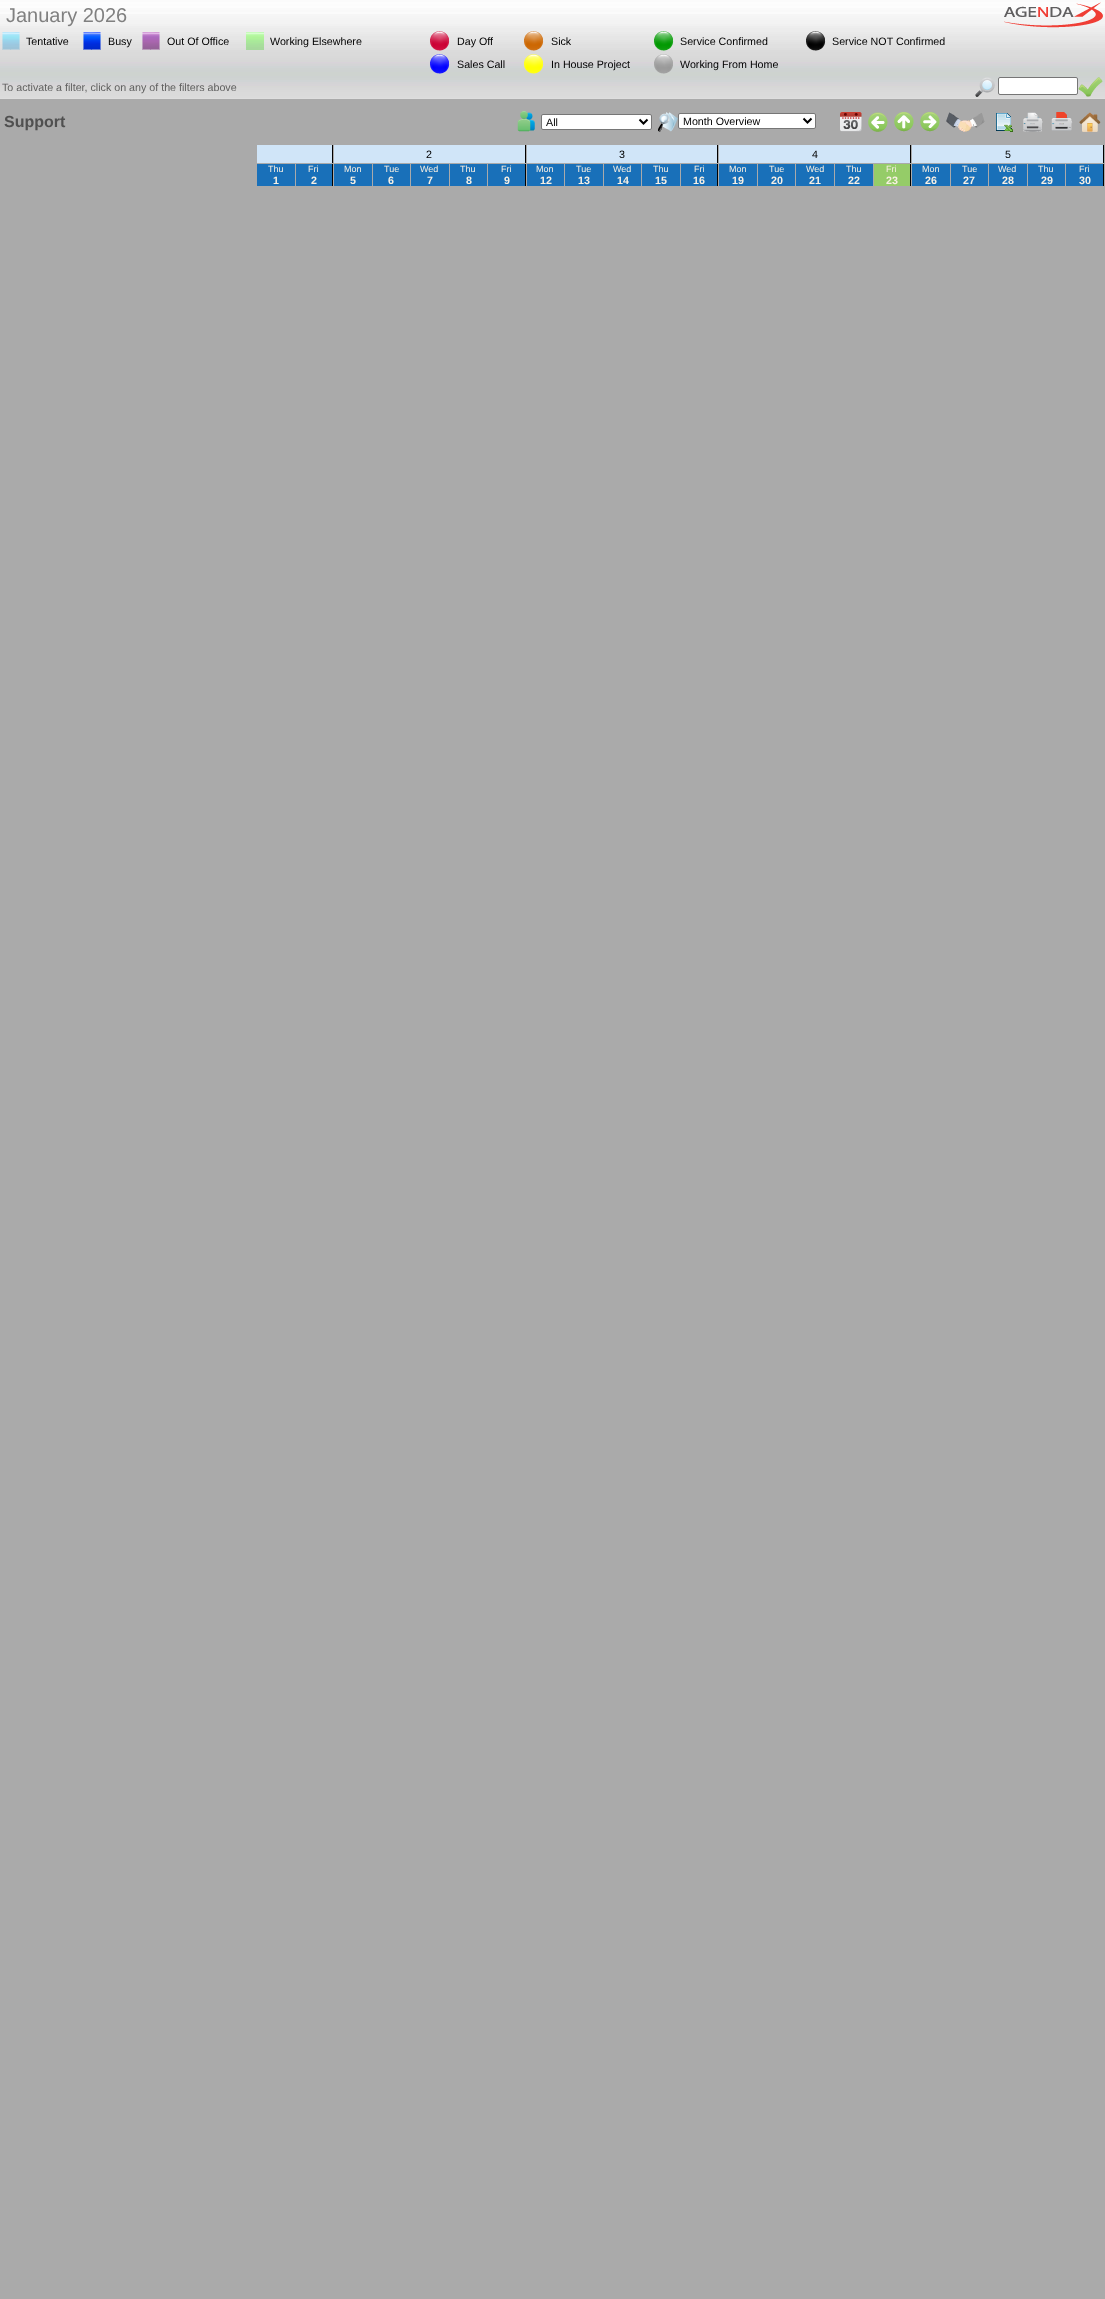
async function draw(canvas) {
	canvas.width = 1105;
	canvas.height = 2299;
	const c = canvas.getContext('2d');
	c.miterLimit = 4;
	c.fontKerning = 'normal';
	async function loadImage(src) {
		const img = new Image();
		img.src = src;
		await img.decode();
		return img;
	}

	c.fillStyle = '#aaa';
	c.fillRect(0, 0, 1105, 2299);
	c.drawImage(await loadImage('img1.png'), 0, 0, 1105, 99);
	c.font = '20px Liberation Sans';
	c.fillStyle = '#808080';
	c.fillText('January 2026', 6, 22);
	c.drawImage(await loadImage('img2.png'), 1004, 2, 99, 26);
	c.drawImage(await loadImage('img3.png'), 2, 32, 18, 18);
	c.font = '10.7px Liberation Sans';
	c.fillStyle = '#000';
	c.fillText('Tentative', 26, 45);
	c.drawImage(await loadImage('img4.png'), 83, 32, 18, 18);
	c.fillText('Busy', 108, 45);
	c.drawImage(await loadImage('img5.png'), 142, 32, 18, 18);
	c.fillText('Out Of Office', 167, 45);
	c.drawImage(await loadImage('img6.png'), 246, 32, 18, 18);
	c.fillText('Working Elsewhere', 270, 45);
	c.drawImage(await loadImage('img7.png'), 430, 31, 20, 20);
	c.fillText('Day Off', 457, 45);
	c.drawImage(await loadImage('img8.png'), 524, 31, 20, 20);
	c.fillText('Sick', 551, 45);
	c.drawImage(await loadImage('img9.png'), 654, 31, 20, 20);
	c.fillText('Service Confirmed', 680, 45);
	c.drawImage(await loadImage('img10.png'), 806, 31, 20, 20);
	c.fillText('Service NOT Confirmed', 832, 45);
	c.drawImage(await loadImage('img11.png'), 430, 54, 20, 20);
	c.fillText('Sales Call', 457, 68);
	c.drawImage(await loadImage('img12.png'), 524, 54, 20, 20);
	c.fillText('In House Project', 551, 68);
	c.drawImage(await loadImage('img13.png'), 654, 54, 19, 20);
	c.fillText('Working From Home', 680, 68);
	c.fillStyle = '#606060';
	c.fillText('To activate a filter, click on any of the filters above', 2, 91);
	c.drawImage(await loadImage('img14.png'), 975, 77, 20, 20);
	c.fillStyle = '#fff';
	c.beginPath();
	c.roundRect(998.5, 77.5, 79, 17, 1.5);
	c.fill();
	c.strokeStyle = '#767676';
	c.stroke();
	c.drawImage(await loadImage('img15.png'), 1078, 77, 25, 20);
	c.font = 'bold 16px Liberation Sans';
	c.fillStyle = '#505050';
	c.fillText('Support', 4, 127);
	c.drawImage(await loadImage('img16.png'), 517, 111, 18, 21);
	c.fillStyle = '#fff';
	c.beginPath();
	c.roundRect(541.5, 114.5, 110, 15, 1.5);
	c.fill();
	c.stroke();
	c.beginPath();
	c.moveTo(639.5, 119.5);
	c.lineTo(643.5, 123.5);
	c.lineTo(647.5, 119.5);
	c.strokeStyle = '#000';
	c.lineWidth = 2;
	c.stroke();
	c.font = '10.7px Liberation Sans';
	c.fillStyle = '#000';
	c.fillText('All', 546, 126);
	c.drawImage(await loadImage('img17.png'), 658, 112, 20, 20);
	c.fillStyle = '#fff';
	c.beginPath();
	c.roundRect(678.5, 113.5, 137, 15, 1.5);
	c.fill();
	c.strokeStyle = '#767676';
	c.lineWidth = 1;
	c.stroke();
	c.beginPath();
	c.moveTo(803.5, 118.5);
	c.lineTo(807.5, 122.5);
	c.lineTo(811.5, 118.5);
	c.strokeStyle = '#000';
	c.lineWidth = 2;
	c.stroke();
	c.fillStyle = '#000';
	c.fillText('Month Overview', 683, 125);
	c.drawImage(await loadImage('img18.png'), 840, 112, 22, 20);
	c.drawImage(await loadImage('img19.png'), 868, 112, 20, 20);
	c.drawImage(await loadImage('img20.png'), 894, 112, 20, 20);
	c.drawImage(await loadImage('img21.png'), 920, 112, 20, 20);
	c.drawImage(await loadImage('img22.png'), 946, 112, 39, 20);
	c.drawImage(await loadImage('img23.png'), 996, 113, 17, 19);
	c.drawImage(await loadImage('img24.png'), 1023, 112, 20, 20);
	c.drawImage(await loadImage('img25.png'), 1051, 112, 22, 19);
	c.drawImage(await loadImage('img26.png'), 1079, 112, 22, 20);
	for (const [x, y, w, h, color] of [
		[257, 145, 75, 18, '#d0e5f8'],
		[332, 145, 1, 18, '#000'],
		[334, 145, 191, 18, '#d0e5f8'],
		[525, 145, 1, 18, '#000'],
	]) {
		c.fillStyle = color;
		c.fillRect(x, y, w, h);
	}
	c.fillText('2', 426, 158);
	c.fillStyle = '#d0e5f8';
	c.fillRect(527, 145, 190, 18);
	c.fillStyle = '#000';
	c.fillRect(717, 145, 1, 18);
	c.fillText('3', 619, 158);
	c.fillStyle = '#d0e5f8';
	c.fillRect(719, 145, 191, 18);
	c.fillStyle = '#000';
	c.fillRect(910, 145, 1, 18);
	c.fillText('4', 812, 158);
	c.fillStyle = '#d0e5f8';
	c.fillRect(912, 145, 191, 18);
	c.fillStyle = '#000';
	c.fillRect(1103, 145, 1, 18);
	c.fillText('5', 1005, 158);
	c.fillStyle = '#1970b9';
	c.fillRect(257, 164, 38, 22);
	c.font = '9px Liberation Sans';
	c.fillStyle = '#f8f0e3';
	c.fillText('Thu', 268, 172);
	c.font = 'bold 10.7px Liberation Sans';
	c.fillText('1', 273, 184);
	c.fillStyle = '#1970b9';
	c.fillRect(296, 164, 36, 22);
	c.fillStyle = '#000';
	c.fillRect(332, 164, 1, 22);
	c.font = '9px Liberation Sans';
	c.fillStyle = '#f8f0e3';
	c.fillText('Fri', 308, 172);
	c.font = 'bold 10.7px Liberation Sans';
	c.fillText('2', 311, 184);
	c.fillStyle = '#1970b9';
	c.fillRect(334, 164, 38, 22);
	c.font = '9px Liberation Sans';
	c.fillStyle = '#f8f0e3';
	c.fillText('Mon', 344, 172);
	c.font = 'bold 10.7px Liberation Sans';
	c.fillText('5', 350, 184);
	c.fillStyle = '#1970b9';
	c.fillRect(373, 164, 37, 22);
	c.font = '9px Liberation Sans';
	c.fillStyle = '#f8f0e3';
	c.fillText('Tue', 384, 172);
	c.font = 'bold 10.7px Liberation Sans';
	c.fillText('6', 388, 184);
	c.fillStyle = '#1970b9';
	c.fillRect(411, 164, 38, 22);
	c.font = '9px Liberation Sans';
	c.fillStyle = '#f8f0e3';
	c.fillText('Wed', 420, 172);
	c.font = 'bold 10.7px Liberation Sans';
	c.fillText('7', 427, 184);
	c.fillStyle = '#1970b9';
	c.fillRect(450, 164, 37, 22);
	c.font = '9px Liberation Sans';
	c.fillStyle = '#f8f0e3';
	c.fillText('Thu', 460, 172);
	c.font = 'bold 10.7px Liberation Sans';
	c.fillText('8', 466, 184);
	c.fillStyle = '#1970b9';
	c.fillRect(488, 164, 37, 22);
	c.fillStyle = '#000';
	c.fillRect(525, 164, 1, 22);
	c.font = '9px Liberation Sans';
	c.fillStyle = '#f8f0e3';
	c.fillText('Fri', 501, 172);
	c.font = 'bold 10.7px Liberation Sans';
	c.fillText('9', 504, 184);
	c.fillStyle = '#1970b9';
	c.fillRect(527, 164, 37, 22);
	c.font = '9px Liberation Sans';
	c.fillStyle = '#f8f0e3';
	c.fillText('Mon', 536, 172);
	c.font = 'bold 10.7px Liberation Sans';
	c.fillText('12', 540, 184);
	c.fillStyle = '#1970b9';
	c.fillRect(565, 164, 38, 22);
	c.font = '9px Liberation Sans';
	c.fillStyle = '#f8f0e3';
	c.fillText('Tue', 576, 172);
	c.font = 'bold 10.7px Liberation Sans';
	c.fillText('13', 578, 184);
	c.fillStyle = '#1970b9';
	c.fillRect(604, 164, 37, 22);
	c.font = '9px Liberation Sans';
	c.fillStyle = '#f8f0e3';
	c.fillText('Wed', 613, 172);
	c.font = 'bold 10.7px Liberation Sans';
	c.fillText('14', 617, 184);
	c.fillStyle = '#1970b9';
	c.fillRect(642, 164, 38, 22);
	c.font = '9px Liberation Sans';
	c.fillStyle = '#f8f0e3';
	c.fillText('Thu', 653, 172);
	c.font = 'bold 10.7px Liberation Sans';
	c.fillText('15', 655, 184);
	c.fillStyle = '#1970b9';
	c.fillRect(681, 164, 36, 22);
	c.fillStyle = '#000';
	c.fillRect(717, 164, 1, 22);
	c.font = '9px Liberation Sans';
	c.fillStyle = '#f8f0e3';
	c.fillText('Fri', 694, 172);
	c.font = 'bold 10.7px Liberation Sans';
	c.fillText('16', 693, 184);
	c.fillStyle = '#1970b9';
	c.fillRect(719, 164, 38, 22);
	c.font = '9px Liberation Sans';
	c.fillStyle = '#f8f0e3';
	c.fillText('Mon', 729, 172);
	c.font = 'bold 10.7px Liberation Sans';
	c.fillText('19', 732, 184);
	c.fillStyle = '#1970b9';
	c.fillRect(758, 164, 37, 22);
	c.font = '9px Liberation Sans';
	c.fillStyle = '#f8f0e3';
	c.fillText('Tue', 769, 172);
	c.font = 'bold 10.7px Liberation Sans';
	c.fillText('20', 771, 184);
	c.fillStyle = '#1970b9';
	c.fillRect(796, 164, 38, 22);
	c.font = '9px Liberation Sans';
	c.fillStyle = '#f8f0e3';
	c.fillText('Wed', 806, 172);
	c.font = 'bold 10.7px Liberation Sans';
	c.fillText('21', 809, 184);
	c.fillStyle = '#1970b9';
	c.fillRect(835, 164, 38, 22);
	c.font = '9px Liberation Sans';
	c.fillStyle = '#f8f0e3';
	c.fillText('Thu', 846, 172);
	c.font = 'bold 10.7px Liberation Sans';
	c.fillText('22', 848, 184);
	c.fillStyle = '#95cc68';
	c.fillRect(874, 164, 36, 22);
	c.fillStyle = '#000';
	c.fillRect(910, 164, 1, 22);
	c.font = '9px Liberation Sans';
	c.fillStyle = '#f8f0e3';
	c.fillText('Fri', 886, 172);
	c.font = 'bold 10.7px Liberation Sans';
	c.fillText('23', 886, 184);
	c.fillStyle = '#1970b9';
	c.fillRect(912, 164, 38, 22);
	c.font = '9px Liberation Sans';
	c.fillStyle = '#f8f0e3';
	c.fillText('Mon', 922, 172);
	c.font = 'bold 10.7px Liberation Sans';
	c.fillText('26', 925, 184);
	c.fillStyle = '#1970b9';
	c.fillRect(951, 164, 37, 22);
	c.font = '9px Liberation Sans';
	c.fillStyle = '#f8f0e3';
	c.fillText('Tue', 962, 172);
	c.font = 'bold 10.7px Liberation Sans';
	c.fillText('27', 963, 184);
	c.fillStyle = '#1970b9';
	c.fillRect(989, 164, 38, 22);
	c.font = '9px Liberation Sans';
	c.fillStyle = '#f8f0e3';
	c.fillText('Wed', 998, 172);
	c.font = 'bold 10.7px Liberation Sans';
	c.fillText('28', 1002, 184);
	c.fillStyle = '#1970b9';
	c.fillRect(1028, 164, 37, 22);
	c.font = '9px Liberation Sans';
	c.fillStyle = '#f8f0e3';
	c.fillText('Thu', 1038, 172);
	c.font = 'bold 10.7px Liberation Sans';
	c.fillText('29', 1041, 184);
	c.fillStyle = '#1970b9';
	c.fillRect(1066, 164, 37, 22);
	c.fillStyle = '#000';
	c.fillRect(1103, 164, 1, 22);
	c.font = '9px Liberation Sans';
	c.fillStyle = '#f8f0e3';
	c.fillText('Fri', 1079, 172);
	c.font = 'bold 10.7px Liberation Sans';
	c.fillText('30', 1079, 184);
}

draw(document.querySelector('canvas'));
